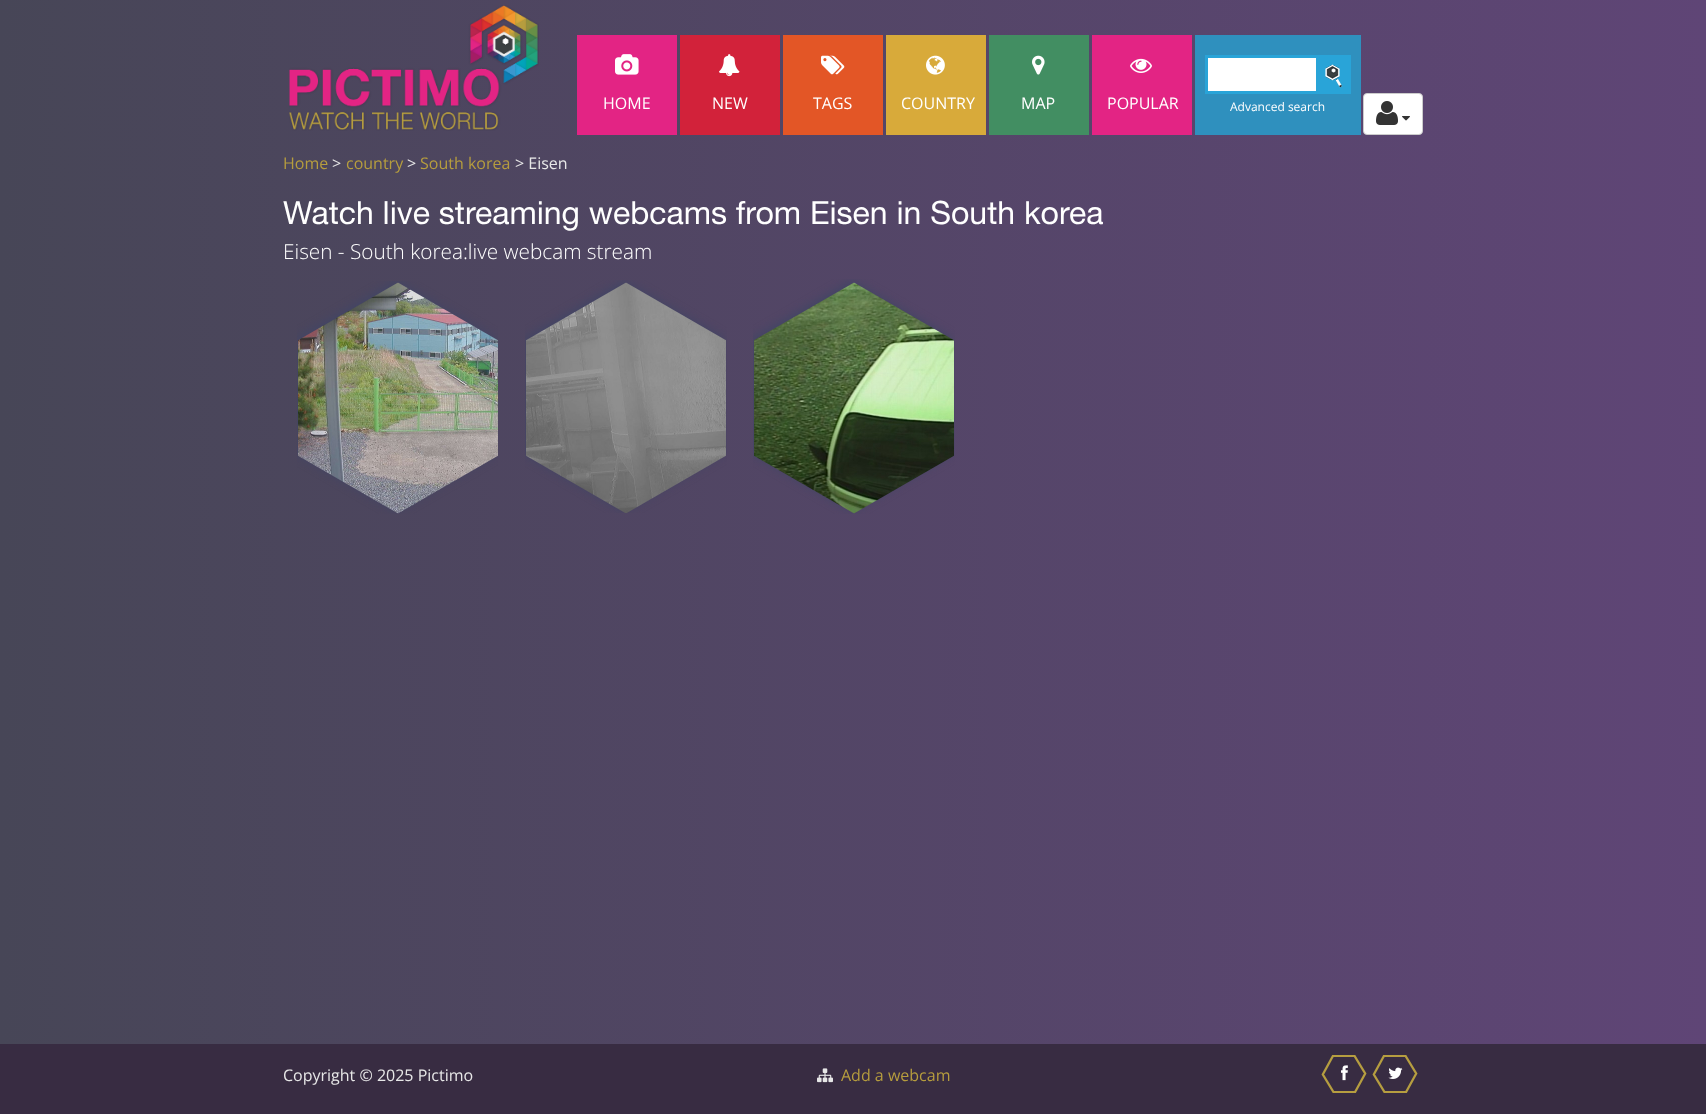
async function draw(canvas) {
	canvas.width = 1706;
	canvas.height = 1114;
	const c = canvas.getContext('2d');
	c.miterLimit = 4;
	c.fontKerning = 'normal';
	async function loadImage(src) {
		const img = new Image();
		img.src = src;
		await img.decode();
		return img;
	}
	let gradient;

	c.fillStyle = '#fff';
	c.fillRect(0, 0, 1706, 1114);
	gradient = c.createLinearGradient(0, 331, 1706, 330);
	gradient.addColorStop(0, '#474657');
	gradient.addColorStop(1, '#5f4576');
	c.fillStyle = gradient;
	c.fillRect(0, 0, 1706, 1044);
	c.drawImage(await loadImage('img1.png'), 289, 5, 250, 126);
	c.fillStyle = '#e32484';
	c.fillRect(577, 35, 100, 100);
	c.drawImage(await loadImage('img2.png'), 615, 54, 24, 21);
	c.font = '16px Open Sans';
	c.fillStyle = '#fff';
	c.fillText('HOME', 603, 109);
	c.fillStyle = '#d2223a';
	c.fillRect(680, 35, 100, 100);
	c.drawImage(await loadImage('img3.png'), 719, 54, 21, 23);
	c.fillStyle = '#fff';
	c.fillText('NEW', 712, 109);
	c.fillStyle = '#e35626';
	c.fillRect(783, 35, 100, 100);
	c.drawImage(await loadImage('img4.png'), 821, 55, 24, 20);
	c.fillStyle = '#fff';
	c.fillText('TAGS', 813, 109);
	c.fillStyle = '#d8aa3a';
	c.fillRect(886, 35, 100, 100);
	c.drawImage(await loadImage('img5.png'), 926, 55, 19, 20);
	c.fillStyle = '#fff';
	c.fillText('COUNTRY', 901, 109);
	c.fillStyle = '#428e62';
	c.fillRect(989, 35, 100, 100);
	c.drawImage(await loadImage('img6.png'), 1032, 55, 13, 20);
	c.fillStyle = '#fff';
	c.fillText('MAP', 1021, 109);
	c.fillStyle = '#e32484';
	c.fillRect(1092, 35, 100, 100);
	c.drawImage(await loadImage('img7.png'), 1130, 58, 22, 15);
	c.fillStyle = '#fff';
	c.fillText('POPULAR', 1107, 109);
	c.fillStyle = '#2f90be';
	c.fillRect(1195, 35, 166, 100);
	c.fillStyle = '#fff';
	c.fillRect(1208, 58, 108, 33);
	c.strokeStyle = '#29a4d8';
	c.lineWidth = 3;
	c.strokeRect(1206.5, 56.5, 143, 36);
	c.fillStyle = '#29a4d8';
	c.fillRect(1316, 58, 32, 33);
	c.drawImage(await loadImage('img8.png'), 1325, 64, 18, 24);
	c.font = '12px Open Sans';
	c.fillStyle = '#fff';
	c.fillText('Advanced search', 1230, 111);
	c.beginPath();
	c.roundRect(1363.5, 93.5, 59, 41, 3.5);
	c.fill();
	c.strokeStyle = '#ccc';
	c.lineWidth = 1;
	c.stroke();
	c.drawImage(await loadImage('img9.png'), 1376, 101, 22, 24);
	c.drawImage(await loadImage('img10.png'), 1402, 116, 8, 5);
	c.font = '16px Open Sans';
	c.fillStyle = '#b69d3e';
	c.fillText('Home', 283, 169);
	c.fillStyle = '#e7e7e7';
	c.fillText('>', 332, 169);
	c.fillStyle = '#b69d3e';
	c.fillText('country', 346, 169);
	c.fillStyle = '#e7e7e7';
	c.fillText('>', 407, 169);
	c.fillStyle = '#b69d3e';
	c.fillText('South korea', 420, 169);
	c.fillStyle = '#e7e7e7';
	c.fillText('> Eisen', 515, 169);
	c.font = '32px Helvetica Neue';
	c.fillStyle = '#fff';
	c.fillText('Watch live streaming webcams from Eisen in South korea', 283, 224);
	c.font = '300 20.75px Open Sans';
	c.fillText('Eisen - South korea:live webcam stream', 283, 259);
	c.drawImage(await loadImage('img11.png'), 297, 281, 201, 233);
	c.drawImage(await loadImage('img12.png'), 525, 280, 202, 233);
	c.drawImage(await loadImage('img13.png'), 753, 279, 202, 235);
	c.fillStyle = '#382c42';
	c.fillRect(0, 1044, 1706, 70);
	c.font = '16px Open Sans';
	c.fillStyle = '#e7e7e7';
	c.fillText('Copyright © 2025 Pictimo', 283, 1081);
	c.drawImage(await loadImage('img14.png'), 817, 1068, 16, 15);
	c.fillStyle = '#b69d3e';
	c.fillText('Add a webcam', 841, 1081);
	c.drawImage(await loadImage('img15.png'), 1321, 1055, 46, 38);
	c.drawImage(await loadImage('img16.png'), 1341, 1065, 7, 16);
	c.drawImage(await loadImage('img15.png'), 1372, 1055, 46, 38);
	c.drawImage(await loadImage('img17.png'), 1388, 1067, 15, 12);
}

draw(document.querySelector('canvas'));
